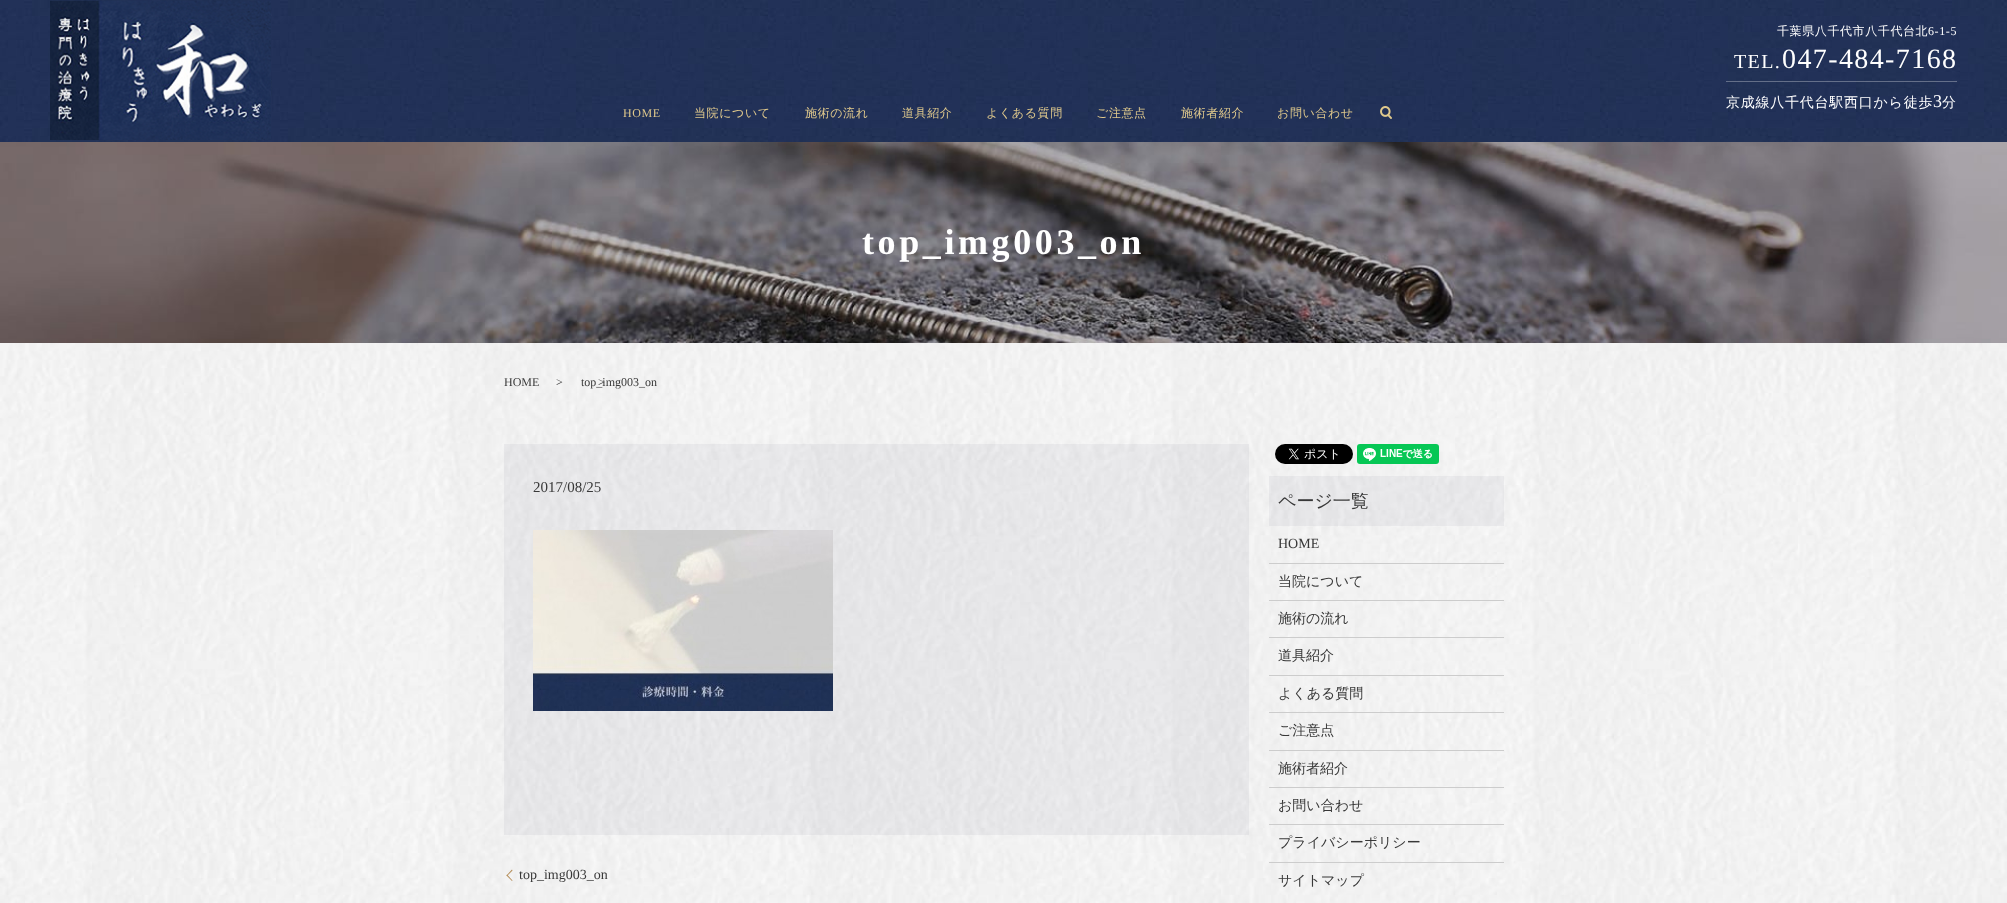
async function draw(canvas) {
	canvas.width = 2007;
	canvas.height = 903;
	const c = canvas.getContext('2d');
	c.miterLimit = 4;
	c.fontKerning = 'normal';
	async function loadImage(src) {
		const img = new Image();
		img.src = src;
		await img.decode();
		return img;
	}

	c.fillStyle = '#fff';
	c.fillRect(0, 0, 2007, 903);
	c.drawImage(await loadImage('img1.png'), 0, 343, 2007, 560);
	c.drawImage(await loadImage('img2.png'), 0, 0, 2007, 142);
	c.drawImage(await loadImage('img3.png'), 50, 0, 221, 140);
	c.letterSpacing = '0.6px';
	c.font = '500 12px WenQuanYi Zen Hei';
	c.fillText('千葉県八千代市八千代台北', 1777, 35);
	c.font = '12px Liberation Serif';
	c.fillText('6-1-5', 1928, 35);
	c.fillStyle = '#ffffff4d';
	c.fillRect(1726, 81, 231, 1);
	c.letterSpacing = '1.4px';
	c.font = '20px Liberation Serif';
	c.fillStyle = '#fff';
	c.fillText('TEL.', 1734, 68);
	c.font = '28px Liberation Serif';
	c.fillText('047-484-7168', 1782, 68);
	c.letterSpacing = '0.75px';
	c.font = '500 14px WenQuanYi Zen Hei';
	c.fillText('京成線八千代台駅西口から徒歩', 1726, 107);
	c.font = '18px Liberation Serif';
	c.fillText('3', 1933, 107);
	c.font = '500 14px WenQuanYi Zen Hei';
	c.fillText('分', 1942, 107);
	c.letterSpacing = '0.6px';
	c.font = '12px Liberation Serif';
	c.fillStyle = '#e0c98c';
	c.fillText('HOME', 623, 117);
	c.font = '500 12px WenQuanYi Zen Hei';
	for (const [text, x, y] of [
		['当院について', 694, 117],
		['施術の流れ', 805, 117],
		['道具紹介', 902, 117],
		['よくある質問', 986, 117],
		['ご注意点', 1096, 117],
		['施術者紹介', 1181, 117],
		['お問い合わせ', 1277, 117],
	]) {
		c.fillText(text, x, y);
	}
	c.drawImage(await loadImage('img4.png'), 1380, 106, 12, 13);
	c.drawImage(await loadImage('img5.png'), 0, 142, 2007, 201);
	c.letterSpacing = '3.6px';
	c.font = 'bold 36px Liberation Serif';
	c.fillStyle = '#fff';
	c.fillText('top_img003_on', 862, 254);
	c.letterSpacing = '0px';
	c.font = '12px Liberation Serif';
	c.fillStyle = '#383838';
	for (const [text, x, y] of [
		['HOME', 504, 386],
		['>', 556, 386],
		['>', 598, 386],
		['top_img003_on', 581, 386],
	]) {
		c.fillText(text, x, y);
	}
	c.fillStyle = '#2030540d';
	c.fillRect(504, 444, 745, 391);
	c.font = '15px Liberation Serif';
	c.fillStyle = '#383838';
	c.fillText('2017/08/25', 533, 492);
	c.drawImage(await loadImage('img6.png'), 533, 530, 300, 181);
	c.fillStyle = '#b28850';
	c.beginPath();
	c.moveTo(506.5, 875.5);
	c.lineTo(512, 869.5);
	c.lineTo(512.5, 870.5);
	c.lineTo(507, 876);
	c.closePath();
	c.fill();
	c.font = '14px Liberation Serif';
	c.fillStyle = '#383838';
	c.fillText('top_img003_on', 519, 879);
	c.fillStyle = '#b28850';
	c.beginPath();
	c.moveTo(512, 881);
	c.lineTo(506.5, 875.5);
	c.lineTo(507, 874.5);
	c.lineTo(512.5, 880.5);
	c.closePath();
	c.fill();
	c.drawImage(await loadImage('img7.png'), 1275, 444, 78, 20);
	c.drawImage(await loadImage('img8.png'), 1357, 444, 82, 20);
	c.fillStyle = '#2030540d';
	c.fillRect(1269, 476, 235, 50);
	c.font = '500 18px WenQuanYi Zen Hei';
	c.fillStyle = '#383838';
	c.fillText('ページ一覧', 1278, 507);
	c.fillStyle = '#ccc';
	c.fillRect(1269, 563, 235, 1);
	c.font = '14px Liberation Serif';
	c.fillStyle = '#383838';
	c.fillText('HOME', 1278, 548);
	c.fillStyle = '#ccc';
	c.fillRect(1269, 600, 235, 1);
	c.font = '500 14px WenQuanYi Zen Hei';
	c.fillStyle = '#383838';
	c.fillText('当院について', 1278, 586);
	c.fillStyle = '#ccc';
	c.fillRect(1269, 637, 235, 1);
	c.fillStyle = '#383838';
	c.fillText('施術の流れ', 1278, 623);
	c.fillStyle = '#ccc';
	c.fillRect(1269, 675, 235, 1);
	c.fillStyle = '#383838';
	c.fillText('道具紹介', 1278, 660);
	c.fillStyle = '#ccc';
	c.fillRect(1269, 712, 235, 1);
	c.fillStyle = '#383838';
	c.fillText('よくある質問', 1278, 698);
	c.fillStyle = '#ccc';
	c.fillRect(1269, 750, 235, 1);
	c.fillStyle = '#383838';
	c.fillText('ご注意点', 1278, 735);
	c.fillStyle = '#ccc';
	c.fillRect(1269, 787, 235, 1);
	c.fillStyle = '#383838';
	c.fillText('施術者紹介', 1278, 773);
	c.fillStyle = '#ccc';
	c.fillRect(1269, 824, 235, 1);
	c.fillStyle = '#383838';
	c.fillText('お問い合わせ', 1278, 810);
	c.fillStyle = '#ccc';
	c.fillRect(1269, 862, 235, 1);
	c.fillStyle = '#383838';
	c.fillText('プライバシーポリシー', 1278, 847);
	c.fillText('サイトマップ', 1278, 885);
}

draw(document.querySelector('canvas'));
